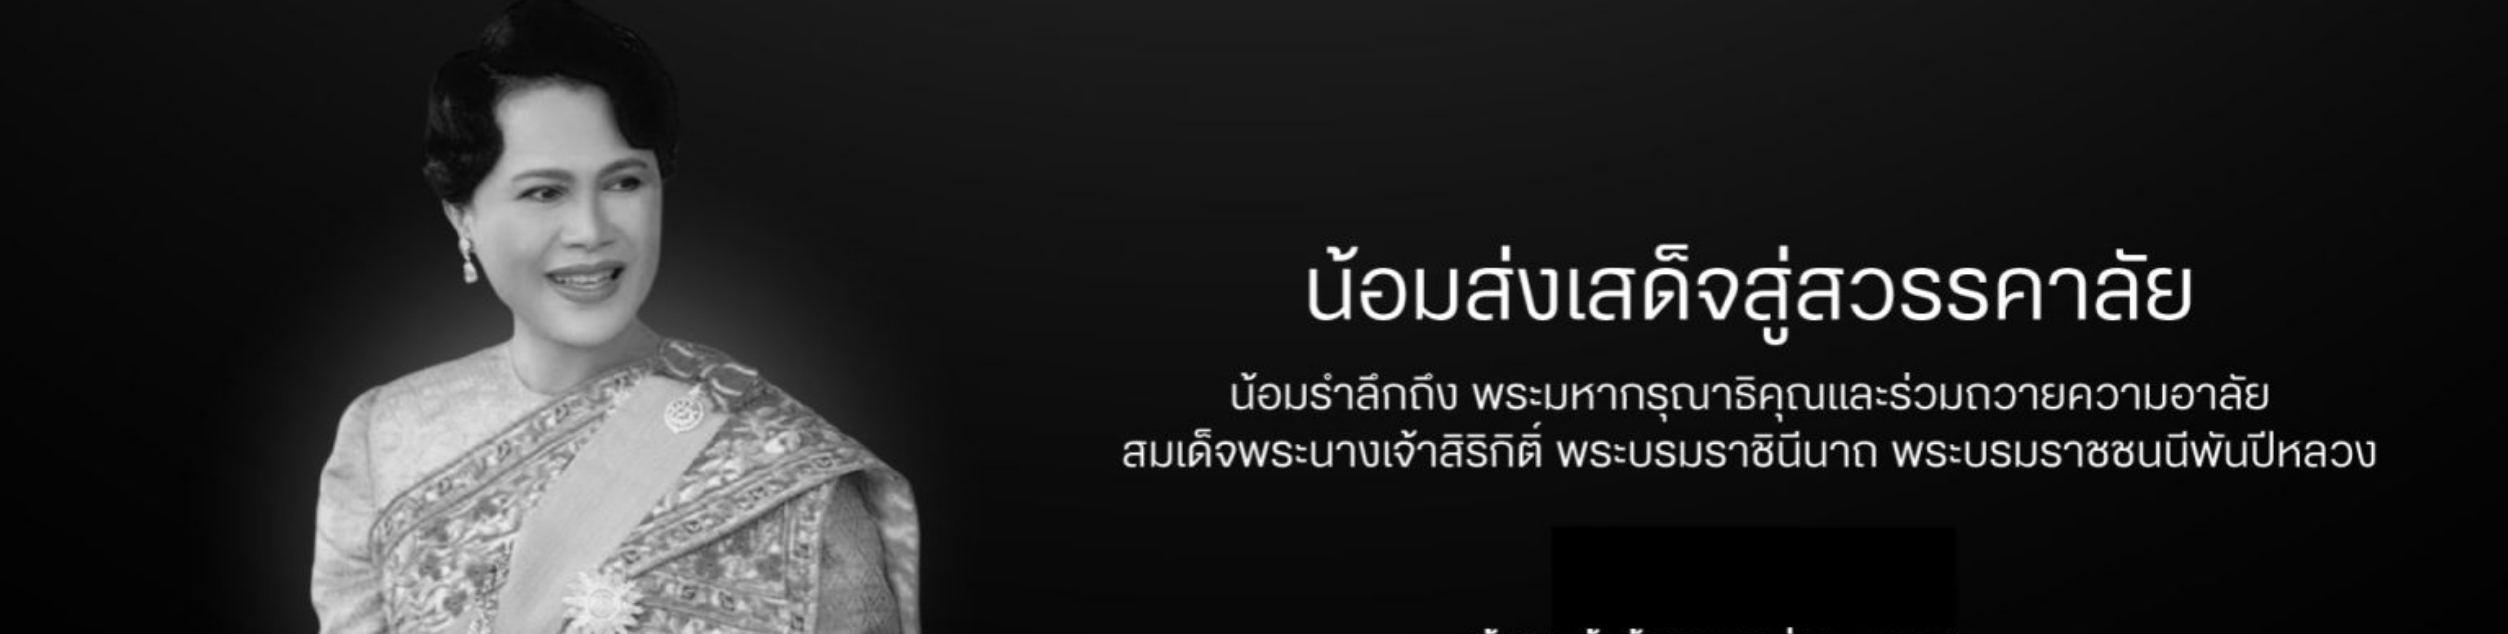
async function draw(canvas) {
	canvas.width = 2508;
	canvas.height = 634;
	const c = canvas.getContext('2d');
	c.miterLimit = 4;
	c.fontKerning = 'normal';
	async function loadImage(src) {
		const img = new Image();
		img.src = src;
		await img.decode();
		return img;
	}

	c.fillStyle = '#fff';
	c.fillRect(0, 0, 2508, 634);
	c.drawImage(await loadImage('img1.png'), 0, 0, 2508, 634);
}

draw(document.querySelector('canvas'));
